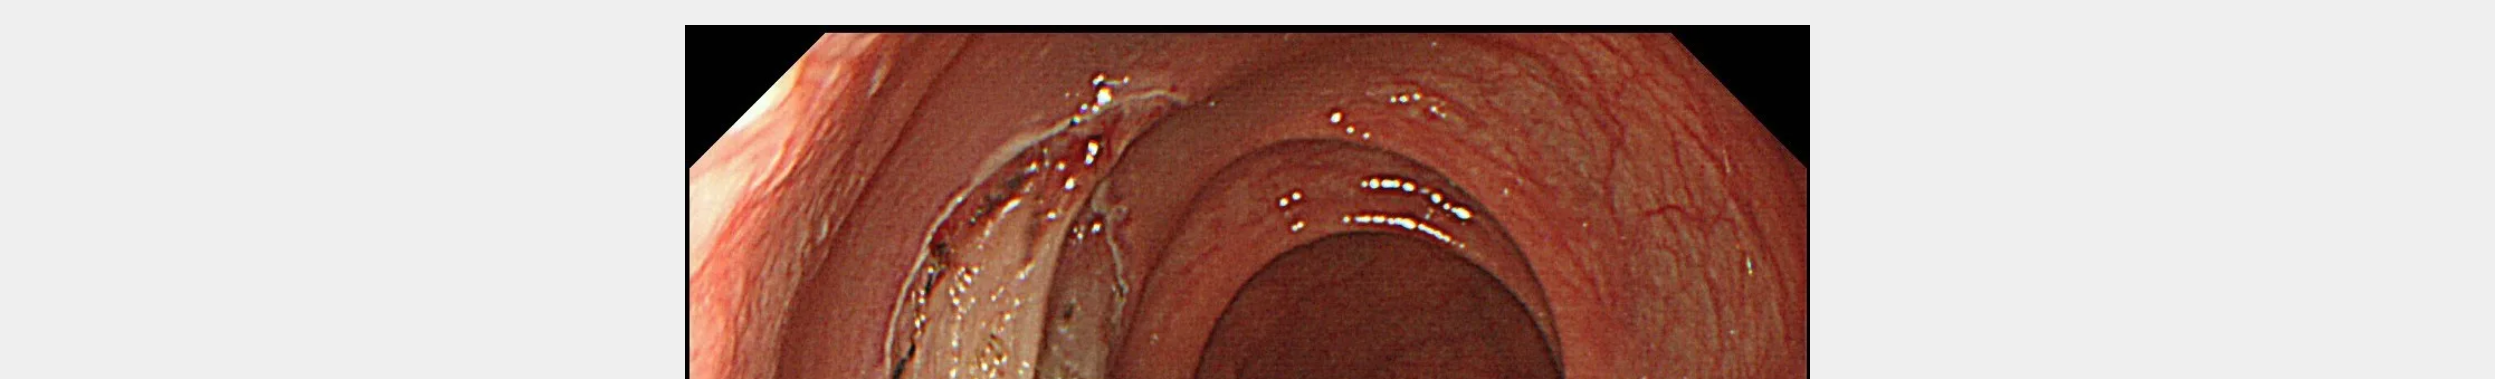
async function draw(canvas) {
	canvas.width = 2495;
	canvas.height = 379;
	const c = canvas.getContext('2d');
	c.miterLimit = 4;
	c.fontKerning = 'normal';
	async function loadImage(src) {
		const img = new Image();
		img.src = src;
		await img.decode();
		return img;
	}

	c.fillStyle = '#efefef';
	c.fillRect(0, 0, 2495, 379);
	c.drawImage(await loadImage('img1.png'), 685, 25, 1125, 354);
}

draw(document.querySelector('canvas'));
